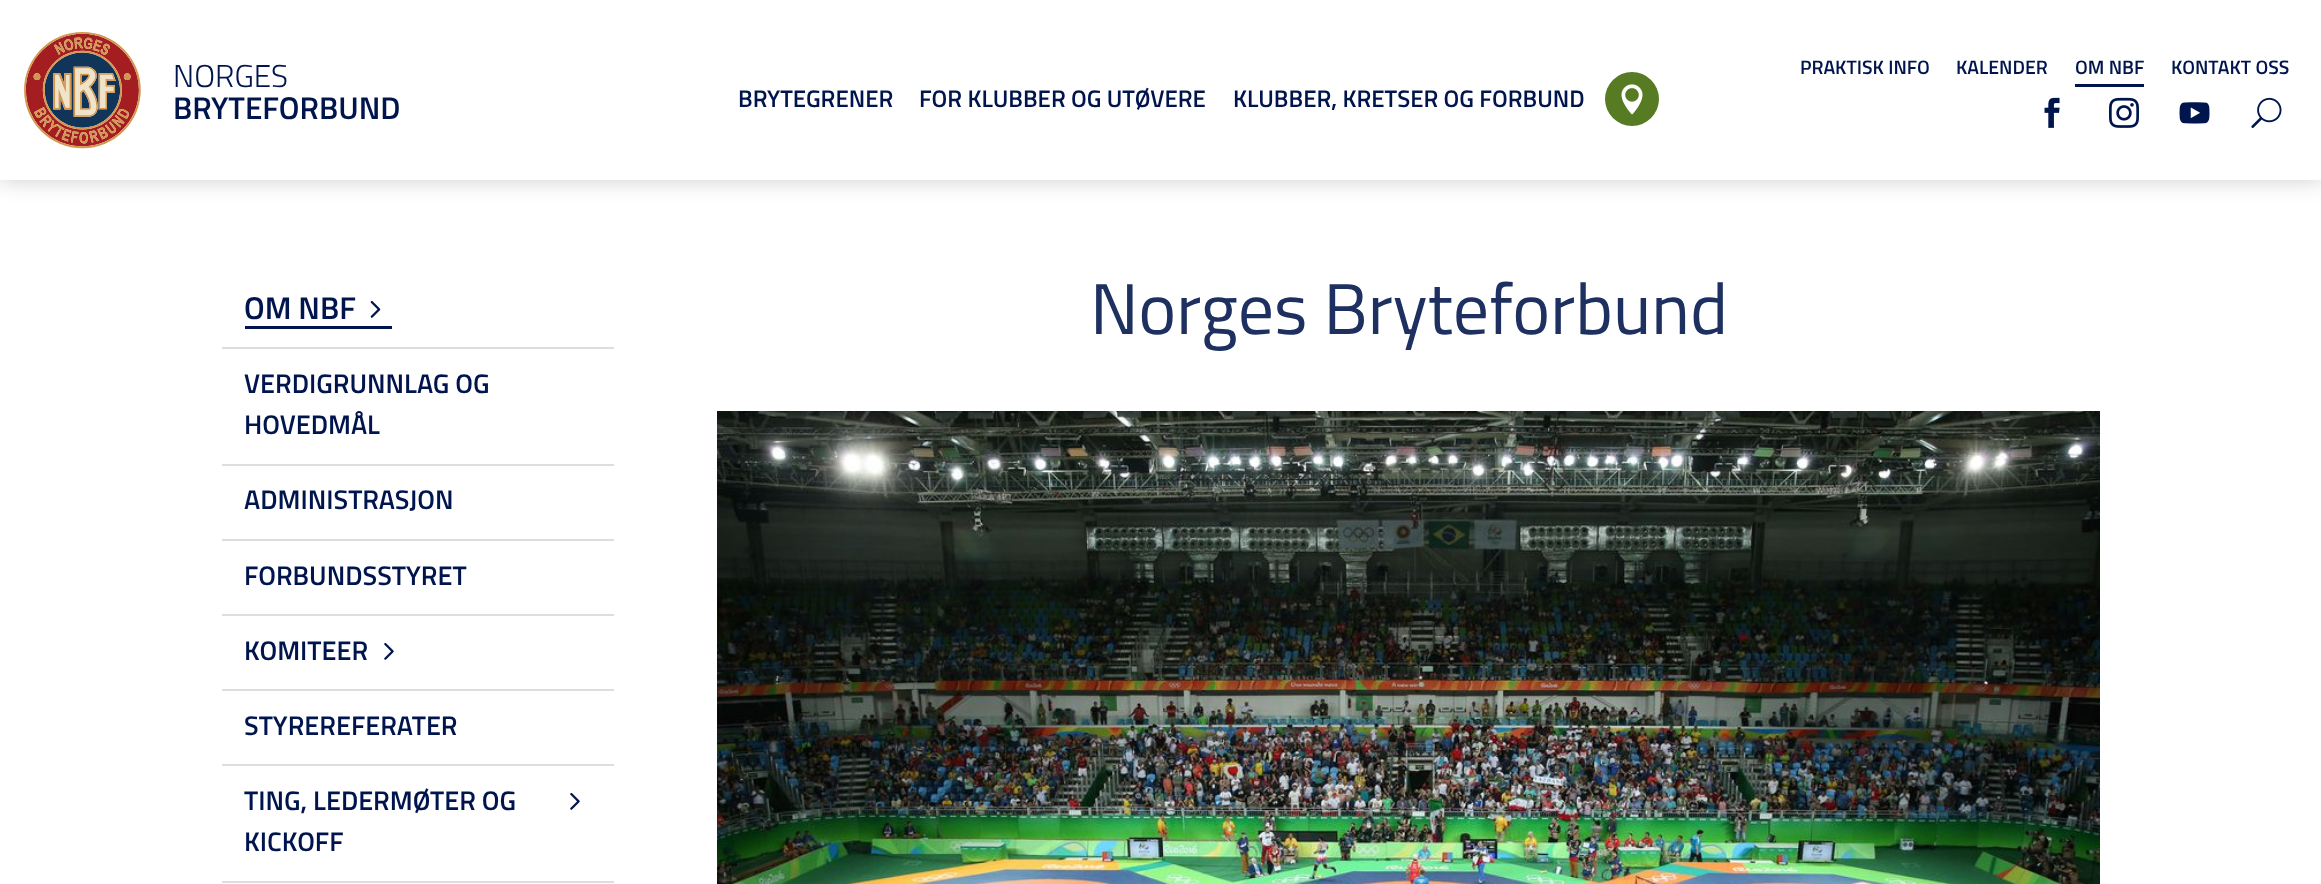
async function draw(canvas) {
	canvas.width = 2321;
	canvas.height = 884;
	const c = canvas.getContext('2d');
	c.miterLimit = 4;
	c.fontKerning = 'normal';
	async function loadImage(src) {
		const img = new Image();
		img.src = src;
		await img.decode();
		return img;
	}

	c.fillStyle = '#fff';
	c.fillRect(0, 0, 2321, 884);
	c.fillStyle = '#00000033';
	c.filter = 'blur(11px)';
	c.beginPath();
	c.rect(0, 0, 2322, 180);
	c.fill();
	c.filter = 'none';
	c.fillStyle = '#fff';
	c.fillRect(0, 0, 2321, 180);
	c.drawImage(await loadImage('img1.png'), 24, 32, 117, 117);
	c.font = '300 31.5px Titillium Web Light';
	c.fillStyle = '#00154d';
	c.fillText('NORGES', 173, 87);
	c.font = '600 31.5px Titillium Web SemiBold';
	c.fillText('BRYTEFORBUND', 173, 119);
	c.font = '600 19.5px Titillium Web SemiBold';
	c.fillText('PRAKTISK INFO', 1800, 74);
	c.fillText('KALENDER', 1956, 74);
	c.fillRect(2075, 84, 69, 3);
	c.fillText('OM NBF', 2075, 74);
	c.fillText('KONTAKT OSS', 2171, 74);
	c.font = '600 24px Titillium Web SemiBold';
	for (const [text, x, y] of [
		['BRYTEGRENER', 738, 107],
		['FOR KLUBBER OG UTØVERE', 919, 107],
		['KLUBBER, KRETSER OG FORBUND', 1233, 107],
	]) {
		c.fillText(text, x, y);
	}
	c.fillStyle = '#567b22';
	c.beginPath();
	c.arc(1632, 99, 27, 0, 2 * Math.PI);
	c.fill();
	c.drawImage(await loadImage('img2.png'), 1621, 84, 22, 31);
	c.drawImage(await loadImage('img3.png'), 2044, 97, 16, 31);
	c.drawImage(await loadImage('img4.png'), 2109, 97, 30, 31);
	c.drawImage(await loadImage('img5.png'), 2179, 102, 31, 22);
	c.drawImage(await loadImage('img6.png'), 2251, 97, 31, 31);
	c.font = '600 31.5px Titillium Web SemiBold';
	c.fillStyle = '#00154d';
	c.fillText('OM NBF', 244, 319);
	c.drawImage(await loadImage('img7.png'), 370, 301, 11, 17);
	c.fillRect(245, 326, 147, 3);
	c.fillStyle = '#ddd';
	c.fillRect(222, 347, 392, 2);
	c.font = '600 27px Titillium Web SemiBold';
	c.fillStyle = '#00154d';
	c.fillText('VERDIGRUNNLAG OG', 244, 393);
	c.fillText('HOVEDMÅL', 244, 434);
	c.fillStyle = '#ddd';
	c.fillRect(222, 464, 392, 2);
	c.fillStyle = '#00154d';
	c.fillText('ADMINISTRASJON', 244, 509);
	c.fillStyle = '#ddd';
	c.fillRect(222, 539, 392, 2);
	c.fillStyle = '#00154d';
	c.fillText('FORBUNDSSTYRET', 244, 585);
	c.fillStyle = '#ddd';
	c.fillRect(222, 614, 392, 2);
	c.fillStyle = '#00154d';
	c.fillText('KOMITEER', 244, 660);
	c.drawImage(await loadImage('img8.png'), 384, 643, 10, 17);
	c.fillStyle = '#ddd';
	c.fillRect(222, 689, 392, 2);
	c.fillStyle = '#00154d';
	c.fillText('STYREREFERATER', 244, 735);
	c.fillStyle = '#ddd';
	c.fillRect(222, 764, 392, 2);
	c.fillStyle = '#00154d';
	c.fillText('TING, LEDERMØTER OG', 244, 810);
	c.drawImage(await loadImage('img8.png'), 570, 793, 10, 17);
	c.fillText('KICKOFF', 244, 851);
	c.fillStyle = '#ddd';
	c.fillRect(222, 881, 392, 2);
	c.font = '72px Titillium Web';
	c.fillStyle = '#1d3060';
	c.fillText('Norges Bryteforbund', 1090, 334);
	c.drawImage(await loadImage('img9.png'), 717, 411, 1383, 473);
}

draw(document.querySelector('canvas'));
